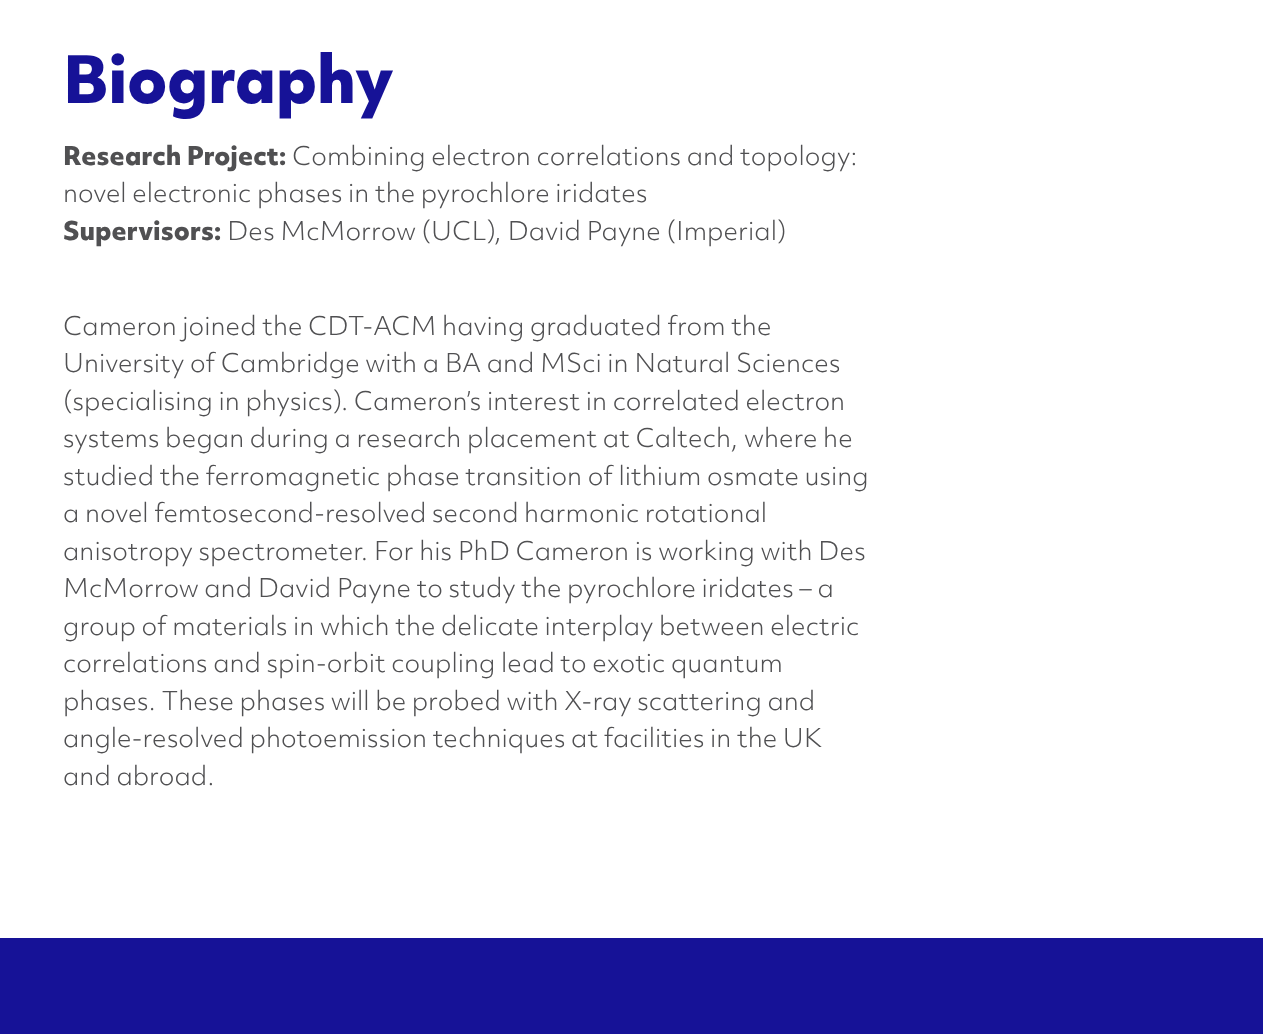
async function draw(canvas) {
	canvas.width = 1263;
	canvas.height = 1034;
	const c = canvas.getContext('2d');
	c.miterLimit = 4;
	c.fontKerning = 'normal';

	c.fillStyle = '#161297';
	c.fillRect(0, 0, 1263, 1034);
	c.fillStyle = '#fff';
	c.fillRect(0, 0, 1263, 938);
	c.letterSpacing = '-0.4px';
	c.font = 'bold 63px "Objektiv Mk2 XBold"';
	c.fillStyle = '#161297';
	c.fillText('Biography', 63, 103);
	c.letterSpacing = '0px';
	c.font = 'bold 25px "Objektiv Mk2 XBold"';
	c.fillStyle = '#505052';
	c.fillText('Research Project:', 63, 165);
	c.font = '300 25px "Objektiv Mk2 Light"';
	c.fillText('Combining electron correlations and topology:', 292, 165);
	c.fillText('novel electronic phases in the pyrochlore iridates', 63, 202);
	c.font = 'bold 25px "Objektiv Mk2 XBold"';
	c.fillText('Supervisors:', 63, 240);
	c.font = '300 25px "Objektiv Mk2 Light"';
	for (const [text, x, y] of [
		['Des McMorrow (UCL), David Payne (Imperial)', 227, 240],
		['Cameron joined the CDT-ACM having graduated from the', 63, 335],
		['University of Cambridge with a BA and MSci in Natural Sciences', 63, 372],
		['(specialising in physics). Cameron’s interest in correlated electron', 63, 410],
		['systems began during a research placement at Caltech, where he', 63, 447],
		['studied the ferromagnetic phase transition of lithium osmate using', 63, 485],
		['a novel femtosecond-resolved second harmonic rotational', 63, 522],
		['anisotropy spectrometer. For his PhD Cameron is working with Des', 63, 560],
		['McMorrow and David Payne to study the pyrochlore iridates – a', 63, 597],
		['group of materials in which the delicate interplay between electric', 63, 635],
		['correlations and spin-orbit coupling lead to exotic quantum', 63, 672],
		['phases. These phases will be probed with X-ray scattering and', 63, 710],
		['angle-resolved photoemission techniques at facilities in the UK', 63, 747],
		['and abroad.', 63, 785],
	]) {
		c.fillText(text, x, y);
	}
}

draw(document.querySelector('canvas'));
